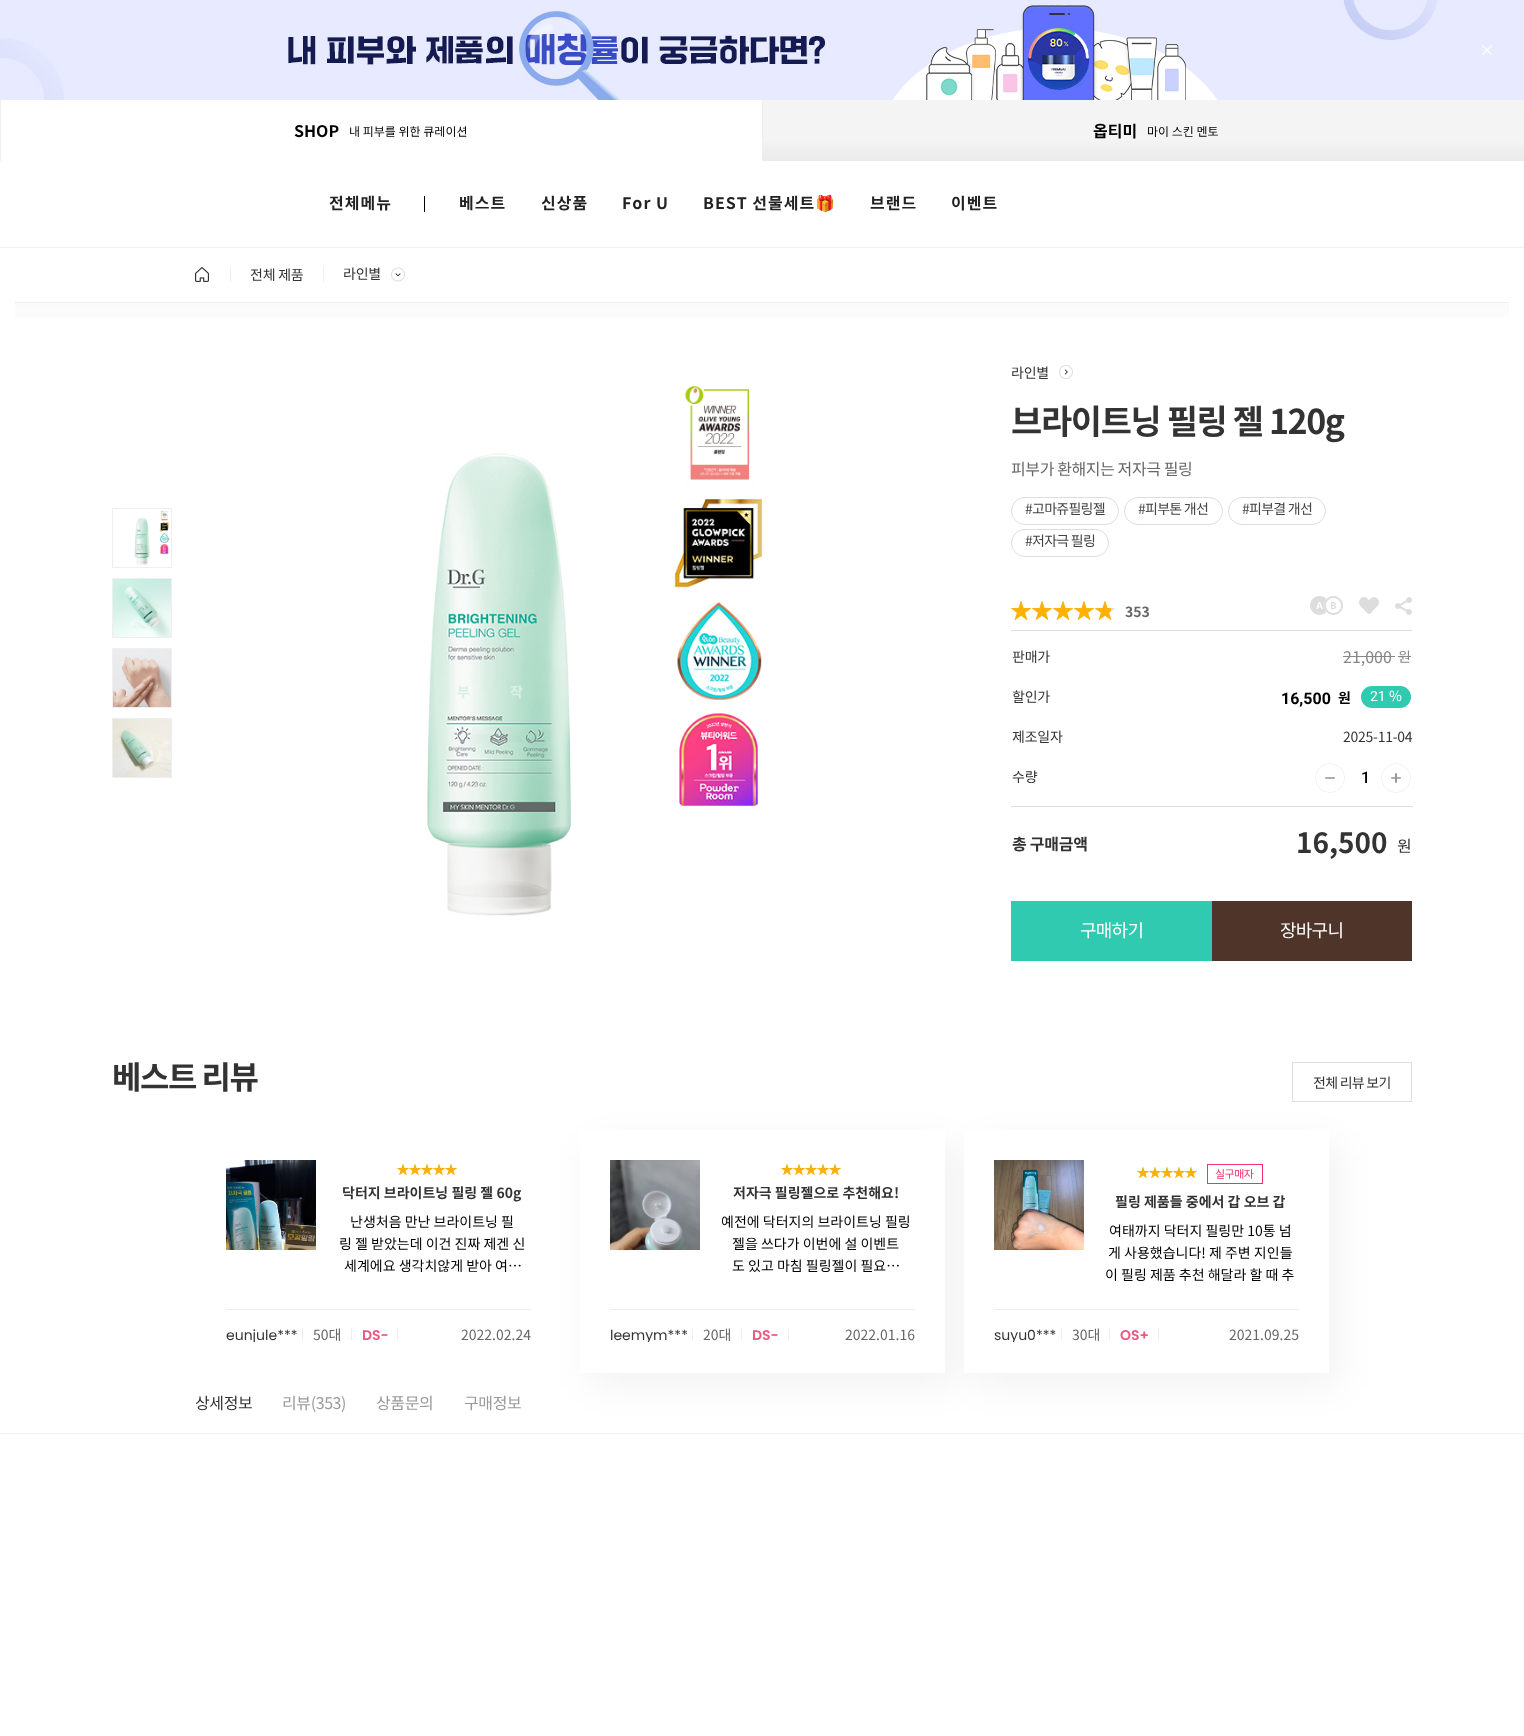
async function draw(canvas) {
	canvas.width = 1524;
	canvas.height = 1736;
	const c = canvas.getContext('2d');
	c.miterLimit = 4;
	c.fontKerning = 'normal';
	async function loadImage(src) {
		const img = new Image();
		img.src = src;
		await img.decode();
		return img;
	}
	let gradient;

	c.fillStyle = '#fff';
	c.fillRect(0, 0, 1524, 1736);
	c.drawImage(await loadImage('img1.png'), 0, 0, 1524, 100);
	c.drawImage(await loadImage('img2.png'), 1482, 45, 10, 10);
	c.fillStyle = '#f4f4f4';
	c.fillRect(763, 100, 761, 39);
	c.fillStyle = '#efefef';
	c.fillRect(0, 100, 1, 61);
	c.font = 'bold 16px Noto Sans KR';
	c.fillStyle = '#000';
	c.fillText('SHOP', 294, 137);
	c.font = '12px Noto Sans KR';
	c.fillText('내 피부를 위한 큐레이션', 349, 136);
	c.fillStyle = '#efefef';
	c.fillRect(762, 100, 1, 39);
	c.font = 'bold 16px Noto Sans KR';
	c.fillStyle = '#000';
	c.fillText('옵티미', 1093, 137);
	c.font = '12px Noto Sans KR';
	c.fillText('마이 스킨 멘토', 1147, 136);
	gradient = c.createLinearGradient(762, 139, 762, 161);
	gradient.addColorStop(0, '#f4f4f4');
	gradient.addColorStop(1, '#eaeaea');
	c.fillStyle = gradient;
	c.fillRect(762, 139, 762, 22);
	c.fillStyle = '#efefef';
	c.fillRect(0, 247, 1524, 1);
	c.letterSpacing = '1px';
	c.font = 'bold 16px Noto Sans KR';
	c.fillStyle = '#222';
	c.fillText('전체메뉴', 329, 209);
	c.fillStyle = '#000';
	c.fillRect(424, 196, 1, 16);
	c.fillStyle = '#222';
	for (const [text, x, y] of [
		['베스트', 459, 209],
		['신상품', 541, 209],
		['For U', 622, 209],
		['BEST 선물세트', 703, 209],
	]) {
		c.fillText(text, x, y);
	}
	c.font = 'bold 16px Noto Color Emoji';
	c.fillText('🎁', 815, 209);
	c.font = 'bold 16px Noto Sans KR';
	c.fillText('브랜드', 870, 209);
	c.fillText('이벤트', 951, 209);
	c.drawImage(await loadImage('img9.png'), 427, 386, 336, 530);
	c.letterSpacing = '0px';
	c.font = 'bold 14px Noto Sans KR';
	c.fillStyle = '#dcefe6';
	c.fillText('부', 457, 697);
	c.fillText('작', 510, 697);
	c.drawImage(await loadImage('img3.png'), 195, 267, 14, 15);
	c.fillStyle = '#eee';
	c.fillRect(230, 267, 1, 15);
	c.letterSpacing = '-0.25px';
	c.font = '14px Noto Sans KR';
	c.fillStyle = '#333';
	c.fillText('전체 제품', 250, 280);
	c.fillStyle = '#eee';
	c.fillRect(323, 267, 1, 15);
	c.fillStyle = '#333';
	c.fillText('라인별', 343, 279);
	c.drawImage(await loadImage('img4.png'), 391, 267, 14, 15);
	gradient = c.createLinearGradient(762, 303, 762, 332);
	gradient.addColorStop(0, '#fafafa');
	gradient.addColorStop(1, '#fff');
	c.fillStyle = gradient;
	c.fillRect(15, 303, 1494, 15);
	c.fillStyle = '#efefef';
	c.fillRect(15, 302, 1494, 1);
	c.strokeStyle = '#efefef';
	c.strokeRect(112.5, 508.5, 59, 59);
	c.drawImage(await loadImage('img5.png'), 134, 510, 35, 55);
	c.strokeRect(112.5, 578.5, 59, 59);
	c.drawImage(await loadImage('img6.png'), 113, 579, 58, 58);
	c.strokeRect(112.5, 648.5, 59, 59);
	c.drawImage(await loadImage('img7.png'), 113, 649, 58, 58);
	c.strokeRect(112.5, 718.5, 59, 59);
	c.drawImage(await loadImage('img8.png'), 113, 719, 58, 58);
	c.fillStyle = '#333';
	c.fillText('라인별', 1011, 378);
	c.drawImage(await loadImage('img10.png'), 1059, 365, 14, 14);
	c.letterSpacing = '-1.4px';
	c.font = 'bold 34px Noto Sans KR';
	c.fillText('브라이트닝 필링 젤 120g', 1011, 434);
	c.letterSpacing = '-0.4px';
	c.font = '16px Noto Sans KR';
	c.fillStyle = '#666';
	c.fillText('피부가 환해지는 저자극 필링', 1011, 475);
	c.beginPath();
	c.roundRect(1011.5, 497.5, 107, 27, 13.5);
	c.strokeStyle = '#ddd';
	c.stroke();
	c.letterSpacing = '-0.75px';
	c.font = '14px Noto Sans KR';
	c.fillStyle = '#444';
	c.fillText('#고마쥬필링젤', 1025, 514);
	c.beginPath();
	c.roundRect(1124.5, 497.5, 98, 27, 13.5);
	c.stroke();
	c.fillText('#피부톤 개선', 1138, 514);
	c.beginPath();
	c.roundRect(1228.5, 497.5, 97, 27, 13.5);
	c.stroke();
	c.fillText('#피부결 개선', 1242, 514);
	c.beginPath();
	c.roundRect(1011.5, 529.5, 97, 27, 13.5);
	c.stroke();
	c.fillText('#저자극 필링', 1025, 546);
	c.drawImage(await loadImage('img11.png'), 1011, 601, 104, 19);
	c.drawImage(await loadImage('img12.png'), 1011, 601, 100, 19);
	c.letterSpacing = '0px';
	c.font = 'bold 14px Noto Sans KR';
	c.fillStyle = '#666';
	c.fillText('353', 1125, 617);
	c.drawImage(await loadImage('img13.png'), 1310, 596, 33, 19);
	c.drawImage(await loadImage('img14.png'), 1359, 597, 20, 17);
	c.drawImage(await loadImage('img15.png'), 1395, 597, 17, 18);
	c.fillStyle = '#ddd';
	c.fillRect(1011, 630, 401, 1);
	c.letterSpacing = '-0.25px';
	c.font = '14px Noto Sans KR';
	c.fillStyle = '#333';
	c.fillText('판매가', 1012, 662);
	c.letterSpacing = '0px';
	c.font = '16px Noto Sans KR';
	c.fillStyle = '#888';
	c.fillText('21,000', 1343, 663);
	c.font = '14px Noto Sans KR';
	c.fillText('원', 1398, 662);
	c.fillRect(1343, 656, 52, 1);
	c.fillRect(1398, 656, 13, 1);
	c.letterSpacing = '-0.25px';
	c.fillStyle = '#333';
	c.fillText('할인가', 1012, 702);
	c.letterSpacing = '0px';
	c.font = 'bold 16px Roboto';
	c.fillStyle = '#000';
	c.fillText('16,500', 1281, 704);
	c.font = 'bold 14px Noto Sans KR';
	c.fillText('원', 1338, 703);
	c.fillStyle = '#2fcab0';
	c.beginPath();
	c.roundRect(1361, 686, 50, 22, 11);
	c.fill();
	c.font = '14px Roboto';
	c.fillStyle = '#fff';
	c.fillText('21', 1370, 701);
	c.font = '14px Noto Sans KR';
	c.fillText('%', 1389, 701);
	c.letterSpacing = '-0.25px';
	c.fillStyle = '#333';
	for (const [text, x, y] of [
		['제조일자', 1012, 742],
		['2025-11-04', 1343, 742],
		['수량', 1012, 782],
	]) {
		c.fillText(text, x, y);
	}
	c.drawImage(await loadImage('img16.png'), 1315, 763, 30, 30);
	c.drawImage(await loadImage('img17.png'), 1381, 763, 30, 30);
	c.letterSpacing = '-1px';
	c.font = '500 16px Roboto';
	c.fillStyle = '#000';
	c.fillText('1', 1361, 783);
	c.letterSpacing = '-0.25px';
	c.font = 'bold 16px Noto Sans KR';
	c.fillStyle = '#333';
	c.fillText('총 구매금액', 1012, 850);
	c.fillStyle = '#ddd';
	c.fillRect(1011, 806, 402, 1);
	c.letterSpacing = '0px';
	c.font = 'bold 28px Noto Sans KR';
	c.fillStyle = '#333';
	c.fillText('16,500', 1296, 853);
	c.font = '16px Noto Sans KR';
	c.fillText('원', 1397, 852);
	c.fillStyle = '#2fcab0';
	c.fillRect(1011, 901, 201, 60);
	c.letterSpacing = '-0.75px';
	c.font = '18px Noto Sans KR';
	c.fillStyle = '#fff';
	c.fillText('구매하기', 1080, 937);
	c.fillStyle = '#4f342a';
	c.fillRect(1212, 901, 200, 60);
	c.fillStyle = '#fff';
	c.fillText('장바구니', 1280, 937);
	c.letterSpacing = '-1.5px';
	c.font = 'bold 32px Noto Sans KR';
	c.fillStyle = '#333';
	c.fillText('베스트 리뷰', 112, 1089);
	c.fillStyle = '#efefef';
	c.fillRect(0, 1433, 1524, 1);
	c.fillStyle = '#0000000d';
	c.filter = 'blur(18px)';
	c.beginPath();
	c.rect(590, 1143, 365, 243);
	c.fill();
	c.filter = 'none';
	c.fillStyle = '#fff';
	c.fillRect(580, 1130, 365, 243);
	c.fillStyle = '#0000000d';
	c.filter = 'blur(18px)';
	c.beginPath();
	c.rect(974, 1143, 365, 243);
	c.fill();
	c.filter = 'none';
	c.strokeRect(1292.5, 1062.5, 119, 39);
	c.letterSpacing = '-0.75px';
	c.font = '14px Noto Sans KR';
	c.fillStyle = '#333';
	c.fillText('전체 리뷰 보기', 1313, 1088);
	c.drawImage(await loadImage('img18.png'), 226, 1160, 90, 90);
	c.drawImage(await loadImage('img19.png'), 397, 1164, 60, 11);
	c.drawImage(await loadImage('img20.png'), 397, 1164, 60, 11);
	c.letterSpacing = '0px';
	c.font = 'bold 14px Noto Sans KR';
	c.fillText('닥터지 브라이트닝 필링 젤 60g', 342, 1198);
	c.font = '14px Noto Sans KR';
	c.fillStyle = '#000';
	for (const [text, x, y] of [
		['난생처음 만난 브라이트닝 필', 350, 1227],
		['링 젤 받았는데 이건 진짜 제겐 신', 339, 1249],
		['세계에요 생각치않게 받아 여…', 344, 1271],
	]) {
		c.fillText(text, x, y);
	}
	c.fillStyle = '#eee';
	c.fillRect(226, 1309, 305, 1);
	c.save();
	c.beginPath();
	c.rect(226, 1310, 305, 32);
	c.clip();
	c.font = '14px Poppins';
	c.fillStyle = '#333';
	c.fillText('eunjule***', 226, 1340);
	c.restore();
	c.fillRect(302, 1328, 1, 12);
	c.fillStyle = '#666';
	c.fillText('50대', 313, 1340);
	c.fillStyle = '#eee';
	c.fillRect(351, 1328, 1, 12);
	c.font = '600 14px Poppins';
	c.fillStyle = '#e85881';
	c.fillText('DS-', 362, 1340);
	c.fillStyle = '#eee';
	c.fillRect(397, 1328, 1, 12);
	c.font = '14px Noto Sans KR';
	c.fillStyle = '#666';
	c.fillText('2022.02.24', 461, 1340);
	c.drawImage(await loadImage('img21.png'), 610, 1160, 90, 90);
	c.drawImage(await loadImage('img19.png'), 781, 1164, 60, 11);
	c.drawImage(await loadImage('img20.png'), 781, 1164, 60, 11);
	c.font = 'bold 14px Noto Sans KR';
	c.fillStyle = '#333';
	c.fillText('저자극 필링젤으로 추천해요!', 733, 1198);
	c.font = '14px Noto Sans KR';
	c.fillStyle = '#000';
	for (const [text, x, y] of [
		['예전에 닥터지의 브라이트닝 필링', 721, 1227],
		['젤을 쓰다가 이번에 설 이벤트', 732, 1249],
		['도 있고 마침 필링젤이 필요…', 732, 1271],
	]) {
		c.fillText(text, x, y);
	}
	c.fillStyle = '#eee';
	c.fillRect(610, 1309, 305, 1);
	c.save();
	c.beginPath();
	c.rect(610, 1310, 305, 32);
	c.clip();
	c.font = '14px Poppins';
	c.fillStyle = '#333';
	c.fillText('leemym***', 610, 1340);
	c.restore();
	c.fillRect(692, 1328, 1, 12);
	c.fillStyle = '#666';
	c.fillText('20대', 703, 1340);
	c.fillStyle = '#eee';
	c.fillRect(741, 1328, 1, 12);
	c.font = '600 14px Poppins';
	c.fillStyle = '#e85881';
	c.fillText('DS-', 752, 1340);
	c.fillStyle = '#eee';
	c.fillRect(788, 1328, 1, 12);
	c.font = '14px Noto Sans KR';
	c.fillStyle = '#666';
	c.fillText('2022.01.16', 845, 1340);
	c.fillStyle = '#fff';
	c.fillRect(964, 1130, 365, 243);
	c.drawImage(await loadImage('img22.png'), 994, 1160, 90, 90);
	c.drawImage(await loadImage('img19.png'), 1137, 1167, 60, 11);
	c.drawImage(await loadImage('img20.png'), 1137, 1167, 60, 11);
	c.strokeStyle = '#f72f6d';
	c.strokeRect(1207.5, 1164.5, 55, 19);
	c.letterSpacing = '-0.5px';
	c.font = '11px Noto Sans KR';
	c.fillStyle = '#f72f6d';
	c.fillText('실구매자', 1215, 1178);
	c.letterSpacing = '0px';
	c.font = 'bold 14px Noto Sans KR';
	c.fillStyle = '#333';
	c.fillText('필링 제품들 중에서 갑 오브 갑', 1115, 1207);
	c.font = '14px Noto Sans KR';
	c.fillStyle = '#000';
	for (const [text, x, y] of [
		['여태까지 닥터지 필링만 10통 넘', 1109, 1236],
		['게 사용했습니다! 제 주변 지인들', 1108, 1258],
		['이 필링 제품 추천 해달라 할 때 추', 1105, 1280],
	]) {
		c.fillText(text, x, y);
	}
	c.fillStyle = '#eee';
	c.fillRect(994, 1309, 305, 1);
	c.save();
	c.beginPath();
	c.rect(994, 1310, 305, 32);
	c.clip();
	c.font = '14px Poppins';
	c.fillStyle = '#333';
	c.fillText('suyu0***', 994, 1340);
	c.restore();
	c.fillRect(1061, 1328, 1, 12);
	c.fillStyle = '#666';
	c.fillText('30대', 1072, 1340);
	c.fillStyle = '#eee';
	c.fillRect(1109, 1328, 1, 12);
	c.font = '600 14px Poppins';
	c.fillStyle = '#e85881';
	c.fillText('OS+', 1120, 1340);
	c.fillStyle = '#eee';
	c.fillRect(1158, 1328, 1, 12);
	c.font = '14px Noto Sans KR';
	c.fillStyle = '#666';
	c.fillText('2021.09.25', 1229, 1340);
	c.letterSpacing = '-0.4px';
	c.font = '16px Noto Sans KR';
	c.fillStyle = '#333';
	c.fillText('상세정보', 195, 1409);
	c.fillStyle = '#999';
	for (const [text, x, y] of [
		['리뷰(353)', 282, 1409],
		['상품문의', 376, 1409],
		['구매정보', 464, 1409],
	]) {
		c.fillText(text, x, y);
	}
}

draw(document.querySelector('canvas'));
